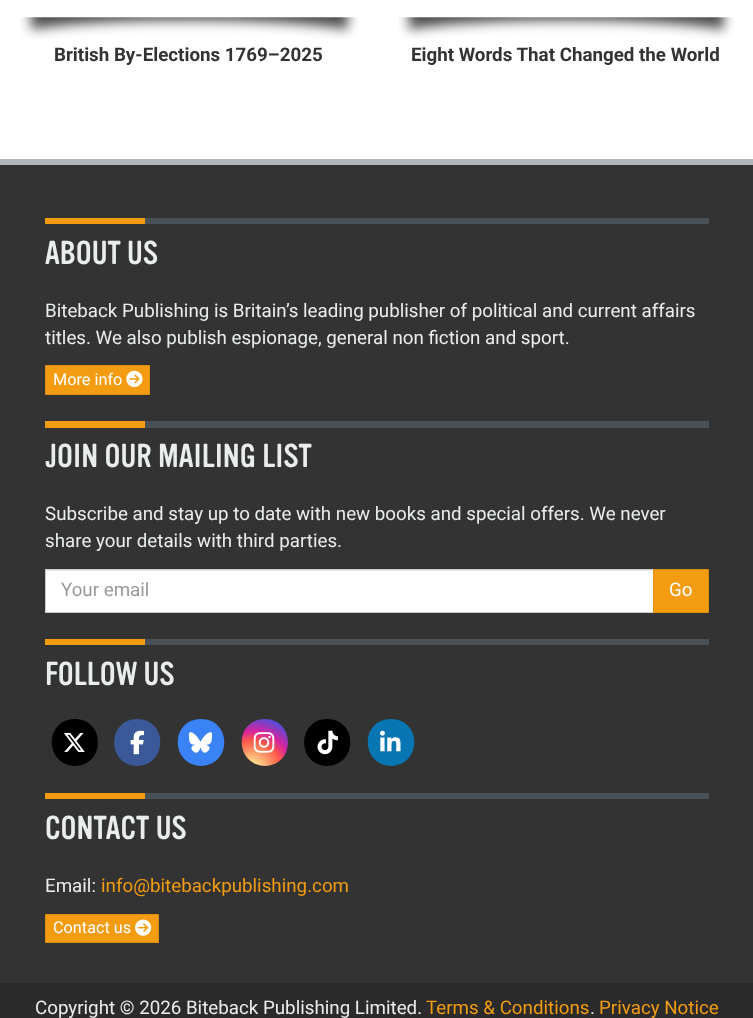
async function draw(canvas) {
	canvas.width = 753;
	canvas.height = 1018;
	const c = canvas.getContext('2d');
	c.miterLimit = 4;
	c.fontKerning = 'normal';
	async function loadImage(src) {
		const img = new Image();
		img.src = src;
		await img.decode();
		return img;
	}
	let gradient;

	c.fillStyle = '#fff';
	c.fillRect(0, 0, 753, 1018);
	c.drawImage(await loadImage('img1.png'), 20, 17, 338, 22);
	c.font = 'bold 18.75px Roboto';
	c.fillStyle = '#333';
	c.fillText('British By-Elections 1769–2025', 54, 61);
	c.drawImage(await loadImage('img2.png'), 398, 17, 337, 22);
	c.fillText('Eight Words That Changed the World', 411, 61);
	for (const [x, y, w, h, color] of [
		[0, 165, 753, 818, '#333'],
		[0, 159, 753, 6, '#b0b7bc'],
		[145, 218, 564, 6, '#495157'],
		[45, 218, 100, 6, '#f39c12'],
	]) {
		c.fillStyle = color;
		c.fillRect(x, y, w, h);
	}
	c.font = '32.5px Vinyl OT';
	c.fillStyle = '#eaedee';
	c.fillText('ABOUT US', 45, 264);
	c.font = '18.75px Roboto';
	c.fillText('Biteback Publishing is Britain’s leading publisher of political and current affairs', 45, 317);
	c.fillText('titles. We also publish espionage, general non fiction and sport.', 45, 344);
	c.fillStyle = '#f39c12';
	c.beginPath();
	c.rect(45.5, 365.5, 104, 29);
	c.fill();
	c.strokeStyle = '#e08e0b';
	c.stroke();
	c.font = '16.25px Roboto';
	c.fillStyle = '#fff';
	c.fillText('More info', 53, 385);
	c.drawImage(await loadImage('img3.png'), 126, 370, 17, 17);
	c.fillStyle = '#495157';
	c.fillRect(145, 421, 564, 7);
	c.fillStyle = '#f39c12';
	c.fillRect(45, 421, 100, 7);
	c.font = '32.5px Vinyl OT';
	c.fillStyle = '#eaedee';
	c.fillText('JOIN OUR MAILING LIST', 45, 467);
	c.font = '18.75px Roboto';
	c.fillText('Subscribe and stay up to date with new books and special offers. We never', 45, 520);
	c.fillText('share your details with third parties.', 45, 547);
	c.fillStyle = '#fff';
	c.fillRect(46, 571, 607, 41);
	c.fillStyle = '#ececec';
	c.fillRect(46, 570, 607, 1);
	c.strokeStyle = '#ccc';
	c.strokeRect(45.5, 569.5, 608, 43);
	c.fillStyle = '#999';
	c.fillText('Your email', 61, 596);
	c.fillStyle = '#f39c12';
	c.beginPath();
	c.rect(653.5, 569.5, 55, 43);
	c.fill();
	c.strokeStyle = '#e08e0b';
	c.stroke();
	c.fillStyle = '#fff';
	c.fillText('Go', 669, 596);
	c.fillStyle = '#495157';
	c.fillRect(145, 639, 564, 6);
	c.fillStyle = '#f39c12';
	c.fillRect(45, 639, 100, 6);
	c.font = '32.5px Vinyl OT';
	c.fillStyle = '#eaedee';
	c.fillText('FOLLOW US', 45, 685);
	c.fillStyle = '#000';
	c.beginPath();
	c.moveTo(75, 766);
	c.bezierCurveTo(106, 765, 105, 719, 75, 719);
	c.bezierCurveTo(44, 719, 44, 765, 75, 766);
	c.closePath();
	c.fill();
	c.drawImage(await loadImage('img4.png'), 63, 732, 22, 20);
	c.fillStyle = '#3b5998';
	c.beginPath();
	c.moveTo(137, 766);
	c.bezierCurveTo(168, 765, 168, 719, 137, 719);
	c.bezierCurveTo(107, 719, 106, 765, 137, 766);
	c.closePath();
	c.fill();
	c.drawImage(await loadImage('img5.png'), 130, 730, 14, 25);
	c.fillStyle = '#3a83f7';
	c.beginPath();
	c.moveTo(201, 766);
	c.bezierCurveTo(232, 765, 232, 719, 201, 719);
	c.bezierCurveTo(170, 719, 170, 765, 201, 766);
	c.closePath();
	c.fill();
	c.drawImage(await loadImage('img6.png'), 188, 732, 25, 21);
	gradient = c.createRadialGradient(252, 770, 0, 252, 770, 65);
	gradient.addColorStop(0, '#fdf497');
	gradient.addColorStop(0.05, '#fdf497');
	gradient.addColorStop(0.45, '#fd5949');
	gradient.addColorStop(0.6, '#d6249f');
	gradient.addColorStop(0.9, '#285aeb');
	c.fillStyle = gradient;
	c.beginPath();
	c.moveTo(265, 766);
	c.bezierCurveTo(296, 765, 295, 719, 265, 719);
	c.bezierCurveTo(234, 719, 234, 765, 265, 766);
	c.closePath();
	c.fill();
	c.drawImage(await loadImage('img7.png'), 253, 732, 22, 21);
	c.fillStyle = '#000';
	c.beginPath();
	c.moveTo(327, 766);
	c.bezierCurveTo(358, 765, 358, 719, 327, 719);
	c.bezierCurveTo(297, 719, 296, 765, 327, 766);
	c.closePath();
	c.fill();
	c.drawImage(await loadImage('img8.png'), 317, 730, 21, 25);
	c.fillStyle = '#0976b4';
	c.beginPath();
	c.moveTo(391, 766);
	c.bezierCurveTo(422, 765, 422, 719, 391, 719);
	c.bezierCurveTo(360, 719, 360, 765, 391, 766);
	c.closePath();
	c.fill();
	c.drawImage(await loadImage('img9.png'), 380, 730, 21, 22);
	c.fillStyle = '#495157';
	c.fillRect(145, 793, 564, 6);
	c.fillStyle = '#f39c12';
	c.fillRect(45, 793, 100, 6);
	c.fillStyle = '#eaedee';
	c.fillText('CONTACT US', 45, 839);
	c.font = '18.75px Roboto';
	c.fillText('Email:', 45, 892);
	c.fillStyle = '#f39c12';
	c.fillText('info@bitebackpublishing.com', 101, 892);
	c.beginPath();
	c.rect(45.5, 914.5, 113, 28);
	c.fill();
	c.stroke();
	c.font = '16.25px Roboto';
	c.fillStyle = '#fff';
	c.fillText('Contact us', 53, 933);
	c.drawImage(await loadImage('img10.png'), 135, 919, 17, 17);
	c.fillStyle = '#2b2b2b';
	c.fillRect(0, 983, 753, 35);
	c.font = '18.75px Roboto';
	c.fillStyle = '#eaedee';
	c.fillText('Copyright © 2026 Biteback Publishing Limited.', 35, 1014);
	c.fillStyle = '#f39c12';
	c.fillText('Terms & Conditions', 426, 1014);
	c.fillStyle = '#eaedee';
	c.fillText('.', 590, 1014);
	c.fillStyle = '#f39c12';
	c.fillText('Privacy Notice', 599, 1014);
}

draw(document.querySelector('canvas'));
